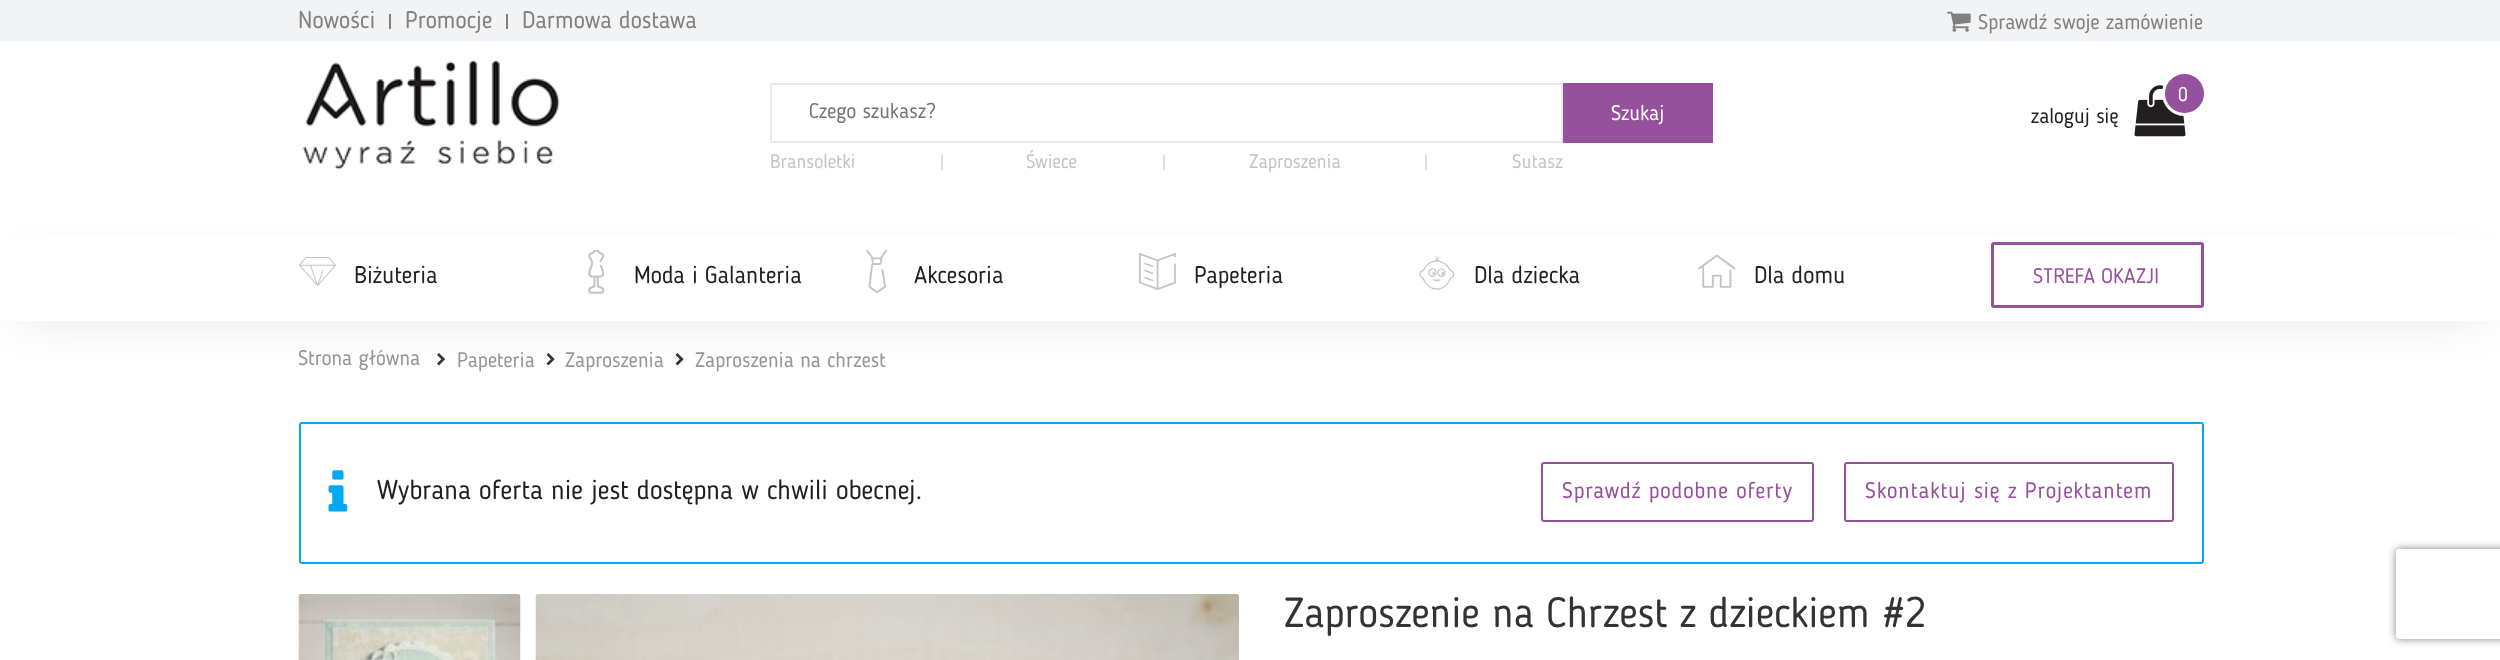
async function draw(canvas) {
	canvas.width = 2500;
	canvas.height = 660;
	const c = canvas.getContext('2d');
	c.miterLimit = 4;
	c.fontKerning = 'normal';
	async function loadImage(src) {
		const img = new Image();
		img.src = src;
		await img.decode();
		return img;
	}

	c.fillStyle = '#fff';
	c.fillRect(0, 0, 2500, 660);
	c.fillStyle = '#f1f3f4';
	c.fillRect(0, 0, 2500, 41);
	c.font = '24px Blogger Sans';
	c.fillStyle = '#827f80';
	c.fillText('Nowości', 298, 28);
	c.fillRect(389, 14, 2, 15);
	c.fillText('Promocje', 405, 28);
	c.fillRect(506, 14, 2, 15);
	c.fillText('Darmowa dostawa', 522, 28);
	c.drawImage(await loadImage('img1.png'), 1947, 11, 24, 21);
	c.font = '21px Blogger Sans';
	c.fillText('Sprawdź swoje zamówienie', 1978, 29);
	c.fillStyle = '#00000026';
	c.filter = 'blur(26px)';
	c.beginPath();
	c.rect(20, 275, 2461, 36);
	c.fill();
	c.filter = 'none';
	c.fillStyle = '#fff';
	c.fillRect(0, 236, 2500, 85);
	c.drawImage(await loadImage('img2.png'), 302, 60, 258, 110);
	c.strokeStyle = '#e8eaed';
	c.lineWidth = 2;
	c.strokeRect(771, 84, 791, 58);
	c.fillStyle = '#757575';
	c.fillText('Czego szukasz?', 809, 118);
	c.fillStyle = '#96519d';
	c.fillRect(1563, 83, 150, 60);
	c.fillStyle = '#fff';
	c.fillText('Szukaj', 1611, 120);
	c.font = '19.5px Blogger Sans';
	c.fillStyle = '#c5c5c5';
	c.fillText('Bransoletki', 770, 168);
	c.fillStyle = '#dfdfdf';
	c.fillRect(941, 155, 2, 15);
	c.fillStyle = '#c5c5c5';
	c.fillText('Świece', 1026, 168);
	c.fillStyle = '#dfdfdf';
	c.fillRect(1163, 155, 2, 15);
	c.fillStyle = '#c5c5c5';
	c.fillText('Zaproszenia', 1249, 168);
	c.fillStyle = '#dfdfdf';
	c.fillRect(1425, 155, 2, 15);
	c.fillStyle = '#c5c5c5';
	c.fillText('Sutasz', 1512, 168);
	c.drawImage(await loadImage('img3.png'), 2134, 85, 52, 52);
	c.fillStyle = '#96519d';
	c.beginPath();
	c.arc(2184.5, 93.5, 21, 0, 2 * Math.PI);
	c.fill();
	c.strokeStyle = '#fff';
	c.lineWidth = 3;
	c.stroke();
	c.fillStyle = '#fff';
	c.fillText('0', 2178, 101);
	c.font = '21px Blogger Sans';
	c.fillStyle = '#231f20';
	c.fillText('zaloguj się', 2031, 123);
	c.drawImage(await loadImage('img4.png'), 299, 257, 37, 29);
	c.font = '24px Blogger Sans';
	c.fillText('Biżuteria', 354, 283);
	c.drawImage(await loadImage('img5.png'), 588, 249, 17, 45);
	c.fillText('Moda i Galanteria', 634, 283);
	c.drawImage(await loadImage('img6.png'), 866, 250, 22, 43);
	c.fillText('Akcesoria', 914, 283);
	c.drawImage(await loadImage('img7.png'), 1139, 253, 37, 37);
	c.fillText('Papeteria', 1194, 283);
	c.drawImage(await loadImage('img8.png'), 1419, 255, 36, 35);
	c.fillText('Dla dziecka', 1474, 283);
	c.drawImage(await loadImage('img9.png'), 1698, 254, 38, 34);
	c.fillText('Dla domu', 1754, 283);
	c.beginPath();
	c.roundRect(1992.5, 243.5, 210, 63, 1.5);
	c.strokeStyle = '#96519d';
	c.stroke();
	c.font = '21px Blogger Sans';
	c.fillStyle = '#96519d';
	c.fillText('STREFA OKAZJI', 2033, 283);
	c.fillStyle = '#979595';
	c.fillText('Strona główna', 298, 365);
	c.drawImage(await loadImage('img10.png'), 437, 353, 8, 13);
	c.fillText('Papeteria', 457, 367);
	c.drawImage(await loadImage('img11.png'), 546, 353, 9, 13);
	c.fillText('Zaproszenia', 565, 367);
	c.drawImage(await loadImage('img11.png'), 675, 353, 9, 13);
	c.fillText('Zaproszenia na chrzest', 695, 367);
	c.beginPath();
	c.roundRect(300, 423, 1903, 140, 2);
	c.strokeStyle = '#03a8f2';
	c.lineWidth = 2;
	c.stroke();
	c.drawImage(await loadImage('img12.png'), 328, 470, 20, 42);
	c.font = '27px Blogger Sans';
	c.fillStyle = '#231f20';
	c.fillText('Wybrana oferta nie jest dostępna w chwili obecnej.', 377, 499);
	c.beginPath();
	c.roundRect(1542, 463, 271, 58, 2);
	c.strokeStyle = '#96519d';
	c.stroke();
	c.letterSpacing = '0.75px';
	c.font = '22.5px Blogger Sans';
	c.fillStyle = '#96519d';
	c.fillText('Sprawdź podobne oferty', 1562, 498);
	c.beginPath();
	c.roundRect(1845, 463, 328, 58, 2);
	c.stroke();
	c.fillText('Skontaktuj się z Projektantem', 1865, 498);
	c.drawImage(await loadImage('img13.png'), 298, 594, 223, 66);
	c.drawImage(await loadImage('img14.png'), 535, 594, 704, 66);
	c.letterSpacing = '0px';
	c.font = '42px Blogger Sans';
	c.fillStyle = '#333';
	c.fillText('Zaproszenie na Chrzest z dzieckiem #2', 1284, 627);
	c.save();
	c.beginPath();
	c.moveTo(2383, 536);
	c.lineTo(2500, 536);
	c.lineTo(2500, 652);
	c.lineTo(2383, 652);
	c.closePath();
	c.moveTo(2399, 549);
	c.lineTo(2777, 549);
	c.bezierCurveTo(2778.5, 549, 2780, 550.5, 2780, 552);
	c.lineTo(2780, 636);
	c.bezierCurveTo(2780, 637.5, 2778.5, 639, 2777, 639);
	c.lineTo(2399, 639);
	c.bezierCurveTo(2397.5, 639, 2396, 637.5, 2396, 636);
	c.lineTo(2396, 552);
	c.bezierCurveTo(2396, 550.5, 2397.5, 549, 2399, 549);
	c.closePath();
	c.clip('evenodd');
	c.fillStyle = '#808080';
	c.filter = 'blur(4px)';
	c.beginPath();
	c.roundRect(2396, 549, 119, 90, 3);
	c.fill();
	c.filter = 'none';
	c.restore();
}

draw(document.querySelector('canvas'));
